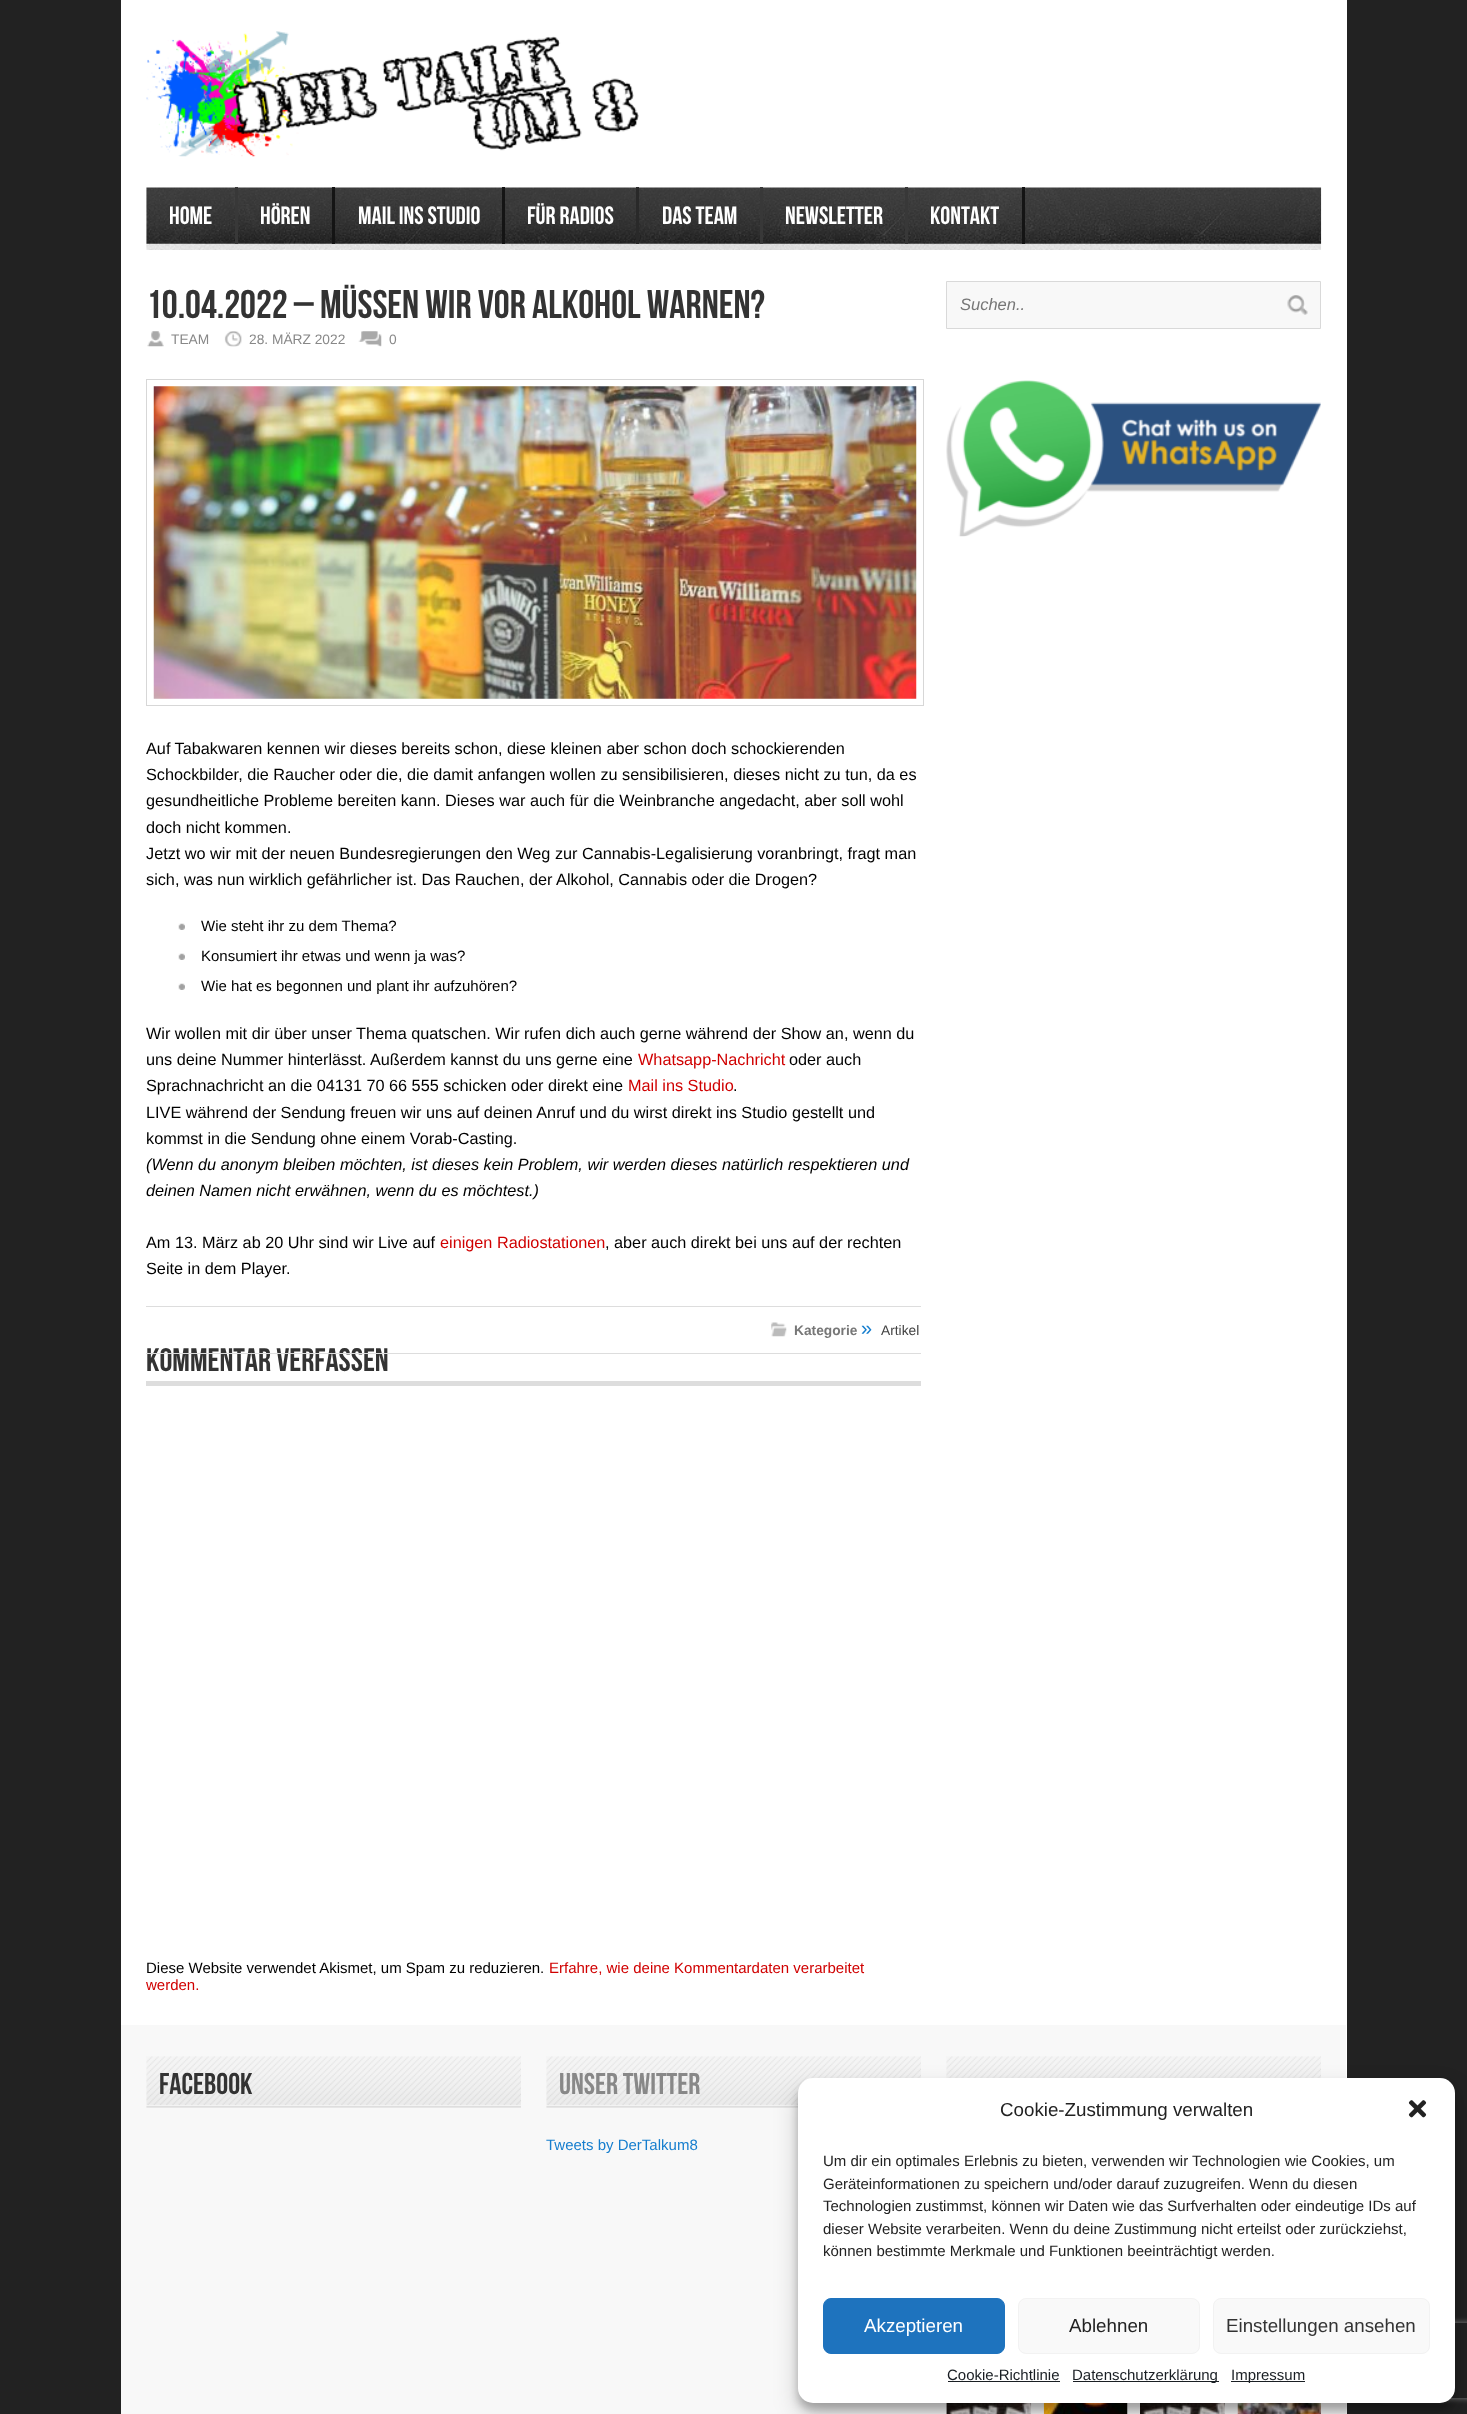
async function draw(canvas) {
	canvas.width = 1467;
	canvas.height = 2414;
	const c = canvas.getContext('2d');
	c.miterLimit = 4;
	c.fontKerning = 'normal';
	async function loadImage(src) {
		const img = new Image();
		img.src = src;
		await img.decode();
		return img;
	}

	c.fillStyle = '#222';
	c.fillRect(0, 0, 1467, 2414);
	c.fillStyle = '#fff';
	c.fillRect(121, 0, 1226, 2414);
	c.drawImage(await loadImage('img1.png'), 146, 31, 493, 126);
	c.drawImage(await loadImage('img2.png'), 146, 187, 1176, 63);
	c.fillStyle = '#383838';
	c.fillRect(235, 187, 3, 57);
	c.font = '25px Bebas Neue';
	c.fillStyle = '#fff';
	c.fillText('Home', 169, 224);
	c.fillStyle = '#141414';
	c.fillRect(332, 187, 3, 57);
	c.fillStyle = '#fff';
	c.fillText('Hören', 260, 224);
	c.fillStyle = '#141414';
	c.fillRect(502, 187, 3, 57);
	c.fillStyle = '#fff';
	c.fillText('Mail ins Studio', 358, 224);
	c.fillStyle = '#292929';
	c.fillRect(636, 187, 3, 57);
	c.fillStyle = '#fff';
	c.fillText('Für Radios', 527, 224);
	c.fillStyle = '#383838';
	c.fillRect(760, 187, 3, 57);
	c.fillStyle = '#fff';
	c.fillText('Das Team', 662, 224);
	c.fillStyle = '#383838';
	c.fillRect(905, 187, 3, 57);
	c.fillStyle = '#fff';
	c.fillText('Newsletter', 785, 224);
	c.fillStyle = '#141414';
	c.fillRect(1022, 187, 3, 57);
	c.fillStyle = '#fff';
	c.fillText('Kontakt', 930, 224);
	c.font = '40px Bebas Neue';
	c.fillStyle = '#333';
	c.fillText('10.04.2022 – Müssen wir vor Alkohol warnen?', 146, 318);
	c.drawImage(await loadImage('img3.png'), 147, 331, 17, 16);
	c.font = '13.75px Liberation Sans';
	c.fillStyle = '#888';
	c.fillText('TEAM', 171, 344);
	c.drawImage(await loadImage('img4.png'), 224, 331, 18, 16);
	c.fillText('28. MÄRZ 2022', 249, 344);
	c.drawImage(await loadImage('img5.png'), 358, 331, 24, 16);
	c.fillText('0', 389, 344);
	c.strokeStyle = '#d7d7d7';
	c.strokeRect(146.5, 379.5, 777, 326);
	c.drawImage(await loadImage('img6.png'), 153, 386, 764, 313);
	c.font = '16.25px Liberation Sans';
	c.fillStyle = '#000';
	for (const [text, x, y] of [
		['Auf Tabakwaren kennen wir dieses bereits schon, diese kleinen aber schon doch schockierenden', 146, 754],
		['Schockbilder, die Raucher oder die, die damit anfangen wollen zu sensibilisieren, dieses nicht zu tun, da es', 146, 780],
		['gesundheitliche Probleme bereiten kann. Dieses war auch für die Weinbranche angedacht, aber soll wohl', 146, 806],
		['doch nicht kommen.', 146, 833],
		['Jetzt wo wir mit der neuen Bundesregierungen den Weg zur Cannabis-Legalisierung voranbringt, fragt man', 146, 859],
		['sich, was nun wirklich gefährlicher ist. Das Rauchen, der Alkohol, Cannabis oder die Drogen?', 146, 885],
	]) {
		c.fillText(text, x, y);
	}
	c.drawImage(await loadImage('img7.png'), 178, 923, 7, 7);
	c.font = '15px Liberation Sans';
	c.fillText('Wie steht ihr zu dem Thema?', 201, 931);
	c.drawImage(await loadImage('img7.png'), 178, 953, 7, 7);
	c.fillText('Konsumiert ihr etwas und wenn ja was?', 201, 961);
	c.drawImage(await loadImage('img7.png'), 178, 983, 7, 7);
	c.fillText('Wie hat es begonnen und plant ihr aufzuhören?', 201, 991);
	c.font = '16.25px Liberation Sans';
	c.fillText('Wir wollen mit dir über unser Thema quatschen. Wir rufen dich auch gerne während der Show an, wenn du', 146, 1039);
	c.fillText('uns deine Nummer hinterlässt. Außerdem kannst du uns gerne eine', 146, 1065);
	c.fillStyle = '#d00000';
	c.fillText('Whatsapp-Nachricht', 638, 1065);
	c.fillStyle = '#000';
	c.fillText('oder auch', 789, 1065);
	c.fillText('Sprachnachricht an die 04131 70 66 555 schicken oder direkt eine', 146, 1091);
	c.fillStyle = '#d00000';
	c.fillText('Mail ins Studio', 628, 1091);
	c.fillStyle = '#000';
	for (const [text, x, y] of [
		['.', 733, 1091],
		['LIVE während der Sendung freuen wir uns auf deinen Anruf und du wirst direkt ins Studio gestellt und', 146, 1118],
		['kommst in die Sendung ohne einem Vorab-Casting.', 146, 1144],
	]) {
		c.fillText(text, x, y);
	}
	c.font = 'italic 16.25px Liberation Sans';
	c.fillText('(Wenn du anonym bleiben möchten, ist dieses kein Problem, wir werden dieses natürlich respektieren und', 146, 1170);
	c.fillText('deinen Namen nicht erwähnen, wenn du es möchtest.)', 146, 1196);
	c.font = '16.25px Liberation Sans';
	c.fillText('Am 13. März ab 20 Uhr sind wir Live auf', 146, 1248);
	c.fillStyle = '#d00000';
	c.fillText('einigen Radiostationen', 440, 1248);
	c.fillStyle = '#000';
	c.fillText(', aber auch direkt bei uns auf der rechten', 605, 1248);
	c.fillText('Seite in dem Player.', 146, 1274);
	c.fillStyle = '#ddd';
	c.fillRect(146, 1306, 775, 1);
	c.font = '32.5px Bebas Neue';
	c.fillStyle = '#333';
	c.fillText('Kommentar verfassen', 146, 1371);
	c.fillStyle = '#ddd';
	c.fillRect(146, 1353, 775, 1);
	c.drawImage(await loadImage('img8.png'), 771, 1322, 16, 15);
	c.font = 'bold 13.75px Liberation Sans';
	c.fillStyle = '#777';
	c.fillText('Kategorie', 794, 1335);
	c.font = '20px Liberation Sans';
	c.fillStyle = '#167ece';
	c.fillText('»', 861, 1335);
	c.font = '13.75px Liberation Sans';
	c.fillStyle = '#444';
	c.fillText('Artikel', 881, 1335);
	c.fillStyle = '#ddd';
	c.fillRect(146, 1381, 775, 5);
	c.font = '15px Liberation Sans';
	c.fillStyle = '#000';
	c.fillText('Diese Website verwendet Akismet, um Spam zu reduzieren.', 146, 1973);
	c.fillStyle = '#d00000';
	c.fillText('Erfahre, wie deine Kommentardaten verarbeitet', 549, 1973);
	c.fillText('werden.', 146, 1990);
	c.fillStyle = '#f8f8f8';
	c.beginPath();
	c.rect(946.5, 281.5, 374, 47);
	c.fill();
	c.strokeStyle = '#d9d9d9';
	c.stroke();
	c.font = 'italic 16.5px Liberation Sans';
	c.fillStyle = '#777';
	c.fillText('Suchen..', 960, 310);
	c.drawImage(await loadImage('img9.png'), 1287, 295, 21, 20);
	c.drawImage(await loadImage('img10.png'), 946, 380, 375, 157);
	c.fillStyle = '#f8f8f8';
	c.fillRect(121, 2025, 1225, 389);
	c.drawImage(await loadImage('img11.png'), 146, 2056, 375, 52);
	c.font = '30px Bebas Neue';
	c.fillStyle = '#333';
	c.fillText('Facebook', 159, 2094);
	c.drawImage(await loadImage('img12.png'), 546, 2056, 375, 52);
	c.fillStyle = '#888';
	c.fillText('Unser Twitter', 559, 2094);
	c.font = '15px Liberation Sans';
	c.fillStyle = '#167ece';
	c.fillText('Tweets by DerTalkum8', 546, 2150);
	c.drawImage(await loadImage('img13.png'), 946, 2056, 375, 22);
	c.drawImage(await loadImage('img14.png'), 946, 2403, 86, 11);
	c.drawImage(await loadImage('img15.png'), 1043, 2403, 85, 11);
	c.drawImage(await loadImage('img16.png'), 1140, 2403, 85, 11);
	c.drawImage(await loadImage('img17.png'), 1237, 2403, 84, 11);
	c.fillStyle = '#0000003b';
	c.filter = 'blur(4px)';
	c.beginPath();
	c.roundRect(798, 2085, 657, 325, 15);
	c.fill();
	c.filter = 'none';
	c.fillStyle = '#00000030';
	c.filter = 'blur(12.5px)';
	c.beginPath();
	c.roundRect(798, 2090, 657, 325, 15);
	c.fill();
	c.filter = 'none';
	c.save();
	c.beginPath();
	c.moveTo(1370, 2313);
	c.lineTo(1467, 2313);
	c.lineTo(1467, 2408);
	c.lineTo(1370, 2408);
	c.closePath();
	c.moveTo(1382.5, 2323);
	c.lineTo(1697.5, 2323);
	c.bezierCurveTo(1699, 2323, 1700, 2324, 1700, 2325.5);
	c.lineTo(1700, 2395.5);
	c.bezierCurveTo(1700, 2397, 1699, 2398, 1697.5, 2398);
	c.lineTo(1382.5, 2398);
	c.bezierCurveTo(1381, 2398, 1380, 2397, 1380, 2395.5);
	c.lineTo(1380, 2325.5);
	c.bezierCurveTo(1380, 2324, 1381, 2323, 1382.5, 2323);
	c.closePath();
	c.clip('evenodd');
	c.fillStyle = '#808080';
	c.filter = 'blur(3px)';
	c.beginPath();
	c.roundRect(1380, 2323, 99, 75, 2.5);
	c.fill();
	c.filter = 'none';
	c.restore();
	c.fillStyle = '#fff';
	c.beginPath();
	c.roundRect(798, 2078, 657, 325, 15);
	c.fill();
	c.font = '18.75px Liberation Sans';
	c.fillStyle = '#222';
	c.fillText('Cookie-Zustimmung verwalten', 1000, 2116);
	c.drawImage(await loadImage('img18.png'), 1408, 2100, 19, 18);
	c.font = '15px Liberation Sans';
	for (const [text, x, y] of [
		['Um dir ein optimales Erlebnis zu bieten, verwenden wir Technologien wie Cookies, um', 823, 2166],
		['Geräteinformationen zu speichern und/oder darauf zuzugreifen. Wenn du diesen', 823, 2189],
		['Technologien zustimmst, können wir Daten wie das Surfverhalten oder eindeutige IDs auf', 823, 2211],
		['dieser Website verarbeiten. Wenn du deine Zustimmung nicht erteilst oder zurückziehst,', 823, 2234],
		['können bestimmte Merkmale und Funktionen beeinträchtigt werden.', 823, 2256],
	]) {
		c.fillText(text, x, y);
	}
	c.fillStyle = '#1e73be';
	c.beginPath();
	c.roundRect(823.5, 2298.5, 181, 55, 7.5);
	c.fill();
	c.strokeStyle = '#1e73be';
	c.stroke();
	c.font = '18.75px Liberation Sans';
	c.fillStyle = '#fff';
	c.fillText('Akzeptieren', 864, 2332);
	c.fillStyle = '#f9f9f9';
	c.beginPath();
	c.roundRect(1018.5, 2298.5, 181, 55, 7.5);
	c.fill();
	c.strokeStyle = '#f2f2f2';
	c.stroke();
	c.fillStyle = '#222';
	c.fillText('Ablehnen', 1069, 2332);
	c.fillStyle = '#f9f9f9';
	c.beginPath();
	c.roundRect(1213.5, 2298.5, 216, 55, 7.5);
	c.fill();
	c.stroke();
	c.fillStyle = '#333';
	c.fillText('Einstellungen ansehen', 1226, 2332);
	c.font = '15px Liberation Sans';
	c.fillStyle = '#191e23';
	c.fillText('Cookie-Richtlinie', 947, 2380);
	c.fillRect(948, 2381, 112, 1);
	c.fillRect(1073, 2381, 146, 1);
	c.fillText('Datenschutzerklärung', 1072, 2380);
	c.fillRect(1231, 2381, 74, 1);
	c.fillText('Impressum', 1231, 2380);
}

draw(document.querySelector('canvas'));
